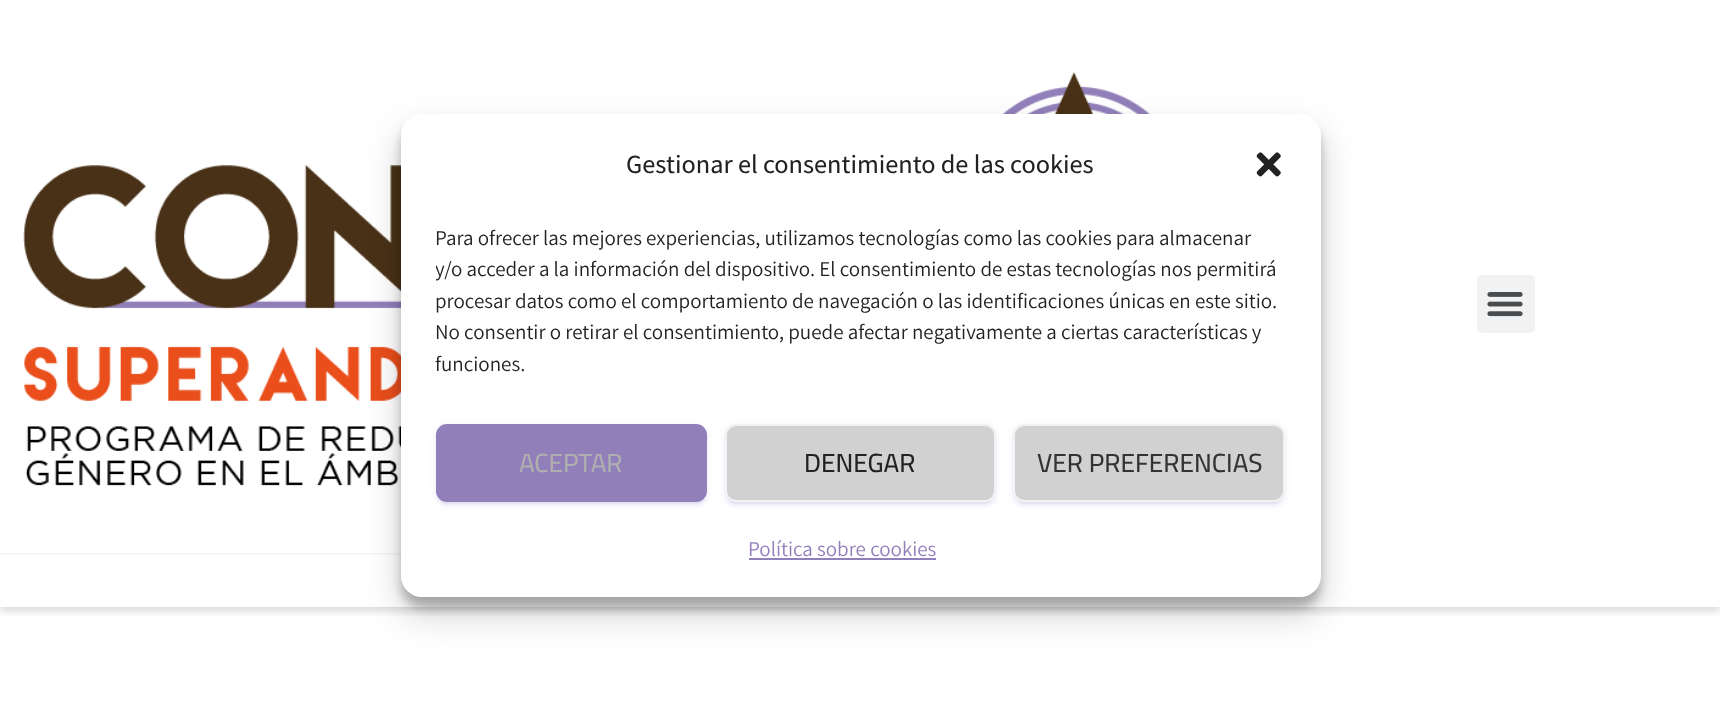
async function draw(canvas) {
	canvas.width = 1720;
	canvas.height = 710;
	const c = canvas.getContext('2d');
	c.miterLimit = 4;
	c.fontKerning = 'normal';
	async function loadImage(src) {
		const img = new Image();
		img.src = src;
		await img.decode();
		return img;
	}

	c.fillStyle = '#fff';
	c.fillRect(0, 0, 1720, 710);
	c.save();
	c.beginPath();
	c.rect(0, 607, 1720, 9);
	c.clip();
	c.fillStyle = '#00000026';
	c.filter = 'blur(4.5px)';
	c.beginPath();
	c.rect(0, 4, 1720, 607);
	c.fill();
	c.filter = 'none';
	c.restore();
	c.fillStyle = '#f6f6f6';
	c.fillRect(0, 553, 401, 2);
	c.drawImage(await loadImage('img1.png'), 23, 72, 1128, 414);
	c.fillStyle = '#f2f2f2';
	c.beginPath();
	c.roundRect(1477, 275, 58, 58, 5);
	c.fill();
	c.drawImage(await loadImage('img2.png'), 1487, 292, 36, 25);
	c.fillStyle = '#0000003b';
	c.filter = 'blur(5px)';
	c.beginPath();
	c.roundRect(401, 124, 920, 483, 21);
	c.fill();
	c.filter = 'none';
	c.fillStyle = '#00000030';
	c.filter = 'blur(17.5px)';
	c.beginPath();
	c.roundRect(401, 131, 920, 483, 21);
	c.fill();
	c.filter = 'none';
	c.fillStyle = '#fff';
	c.beginPath();
	c.roundRect(401, 114, 920, 483, 21);
	c.fill();
	c.font = '500 26.25px Assistant';
	c.fillStyle = '#222';
	c.fillText('Gestionar el consentimiento de las cookies', 626, 173);
	c.drawImage(await loadImage('img3.png'), 1256, 152, 25, 25);
	c.font = '21px Assistant';
	c.fillText('Para ofrecer las mejores experiencias, utilizamos tecnologías como las cookies para almacenar', 435, 245);
	c.save();
	c.beginPath();
	c.rect(436, 222, 850, 167);
	c.clip();
	c.fillText('y/o acceder a la información del dispositivo. El consentimiento de estas tecnologías nos permitirá', 435, 276);
	c.restore();
	for (const [text, x, y] of [
		['procesar datos como el comportamiento de navegación o las identificaciones únicas en este sitio.', 435, 308],
		['No consentir o retirar el consentimiento, puede afectar negativamente a ciertas características y', 435, 339],
		['funciones.', 435, 371],
	]) {
		c.fillText(text, x, y);
	}
	c.fillStyle = '#b1a3e01f';
	c.filter = 'blur(4.5px)';
	c.beginPath();
	c.roundRect(436, 425, 271, 79, 11);
	c.fill();
	c.filter = 'none';
	c.fillStyle = '#b1a3e033';
	c.filter = 'blur(1px)';
	c.beginPath();
	c.roundRect(439, 432, 265, 72, 7);
	c.fill();
	c.filter = 'none';
	c.fillStyle = '#b1a3e024';
	c.filter = 'blur(2px)';
	c.beginPath();
	c.roundRect(436, 427, 271, 79, 11);
	c.fill();
	c.filter = 'none';
	c.fillStyle = '#917fba';
	c.beginPath();
	c.roundRect(437, 425, 269, 76, 10);
	c.fill();
	c.strokeStyle = '#917fba';
	c.lineWidth = 2;
	c.stroke();
	c.font = '500 26.25px Cairo';
	c.fillStyle = '#afafaf';
	c.fillText('ACEPTAR', 519, 472);
	c.fillStyle = '#b1a3e01f';
	c.filter = 'blur(4.5px)';
	c.beginPath();
	c.roundRect(725, 425, 271, 79, 11);
	c.fill();
	c.filter = 'none';
	c.fillStyle = '#b1a3e033';
	c.filter = 'blur(1px)';
	c.beginPath();
	c.roundRect(728, 432, 264, 72, 7);
	c.fill();
	c.filter = 'none';
	c.fillStyle = '#b1a3e024';
	c.filter = 'blur(2px)';
	c.beginPath();
	c.roundRect(725, 427, 271, 79, 11);
	c.fill();
	c.filter = 'none';
	c.fillStyle = '#d1d1d1';
	c.beginPath();
	c.roundRect(726, 425, 269, 76, 10);
	c.fill();
	c.strokeStyle = '#f2f2f2';
	c.stroke();
	c.fillStyle = '#222';
	c.fillText('DENEGAR', 804, 472);
	c.fillStyle = '#b1a3e01f';
	c.filter = 'blur(4.5px)';
	c.beginPath();
	c.roundRect(1013, 425, 272, 79, 11);
	c.fill();
	c.filter = 'none';
	c.fillStyle = '#b1a3e033';
	c.filter = 'blur(1px)';
	c.beginPath();
	c.roundRect(1017, 432, 264, 72, 7);
	c.fill();
	c.filter = 'none';
	c.fillStyle = '#b1a3e024';
	c.filter = 'blur(2px)';
	c.beginPath();
	c.roundRect(1013, 427, 272, 79, 11);
	c.fill();
	c.filter = 'none';
	c.fillStyle = '#d1d1d1';
	c.beginPath();
	c.roundRect(1014, 425, 270, 76, 10);
	c.fill();
	c.stroke();
	c.fillStyle = '#333';
	c.fillText('VER PREFERENCIAS', 1037, 472);
	c.font = '21px Assistant';
	c.fillStyle = '#917fba';
	c.fillText('Política sobre cookies', 748, 556);
	c.fillRect(749, 558, 187, 2);
}

draw(document.querySelector('canvas'));
